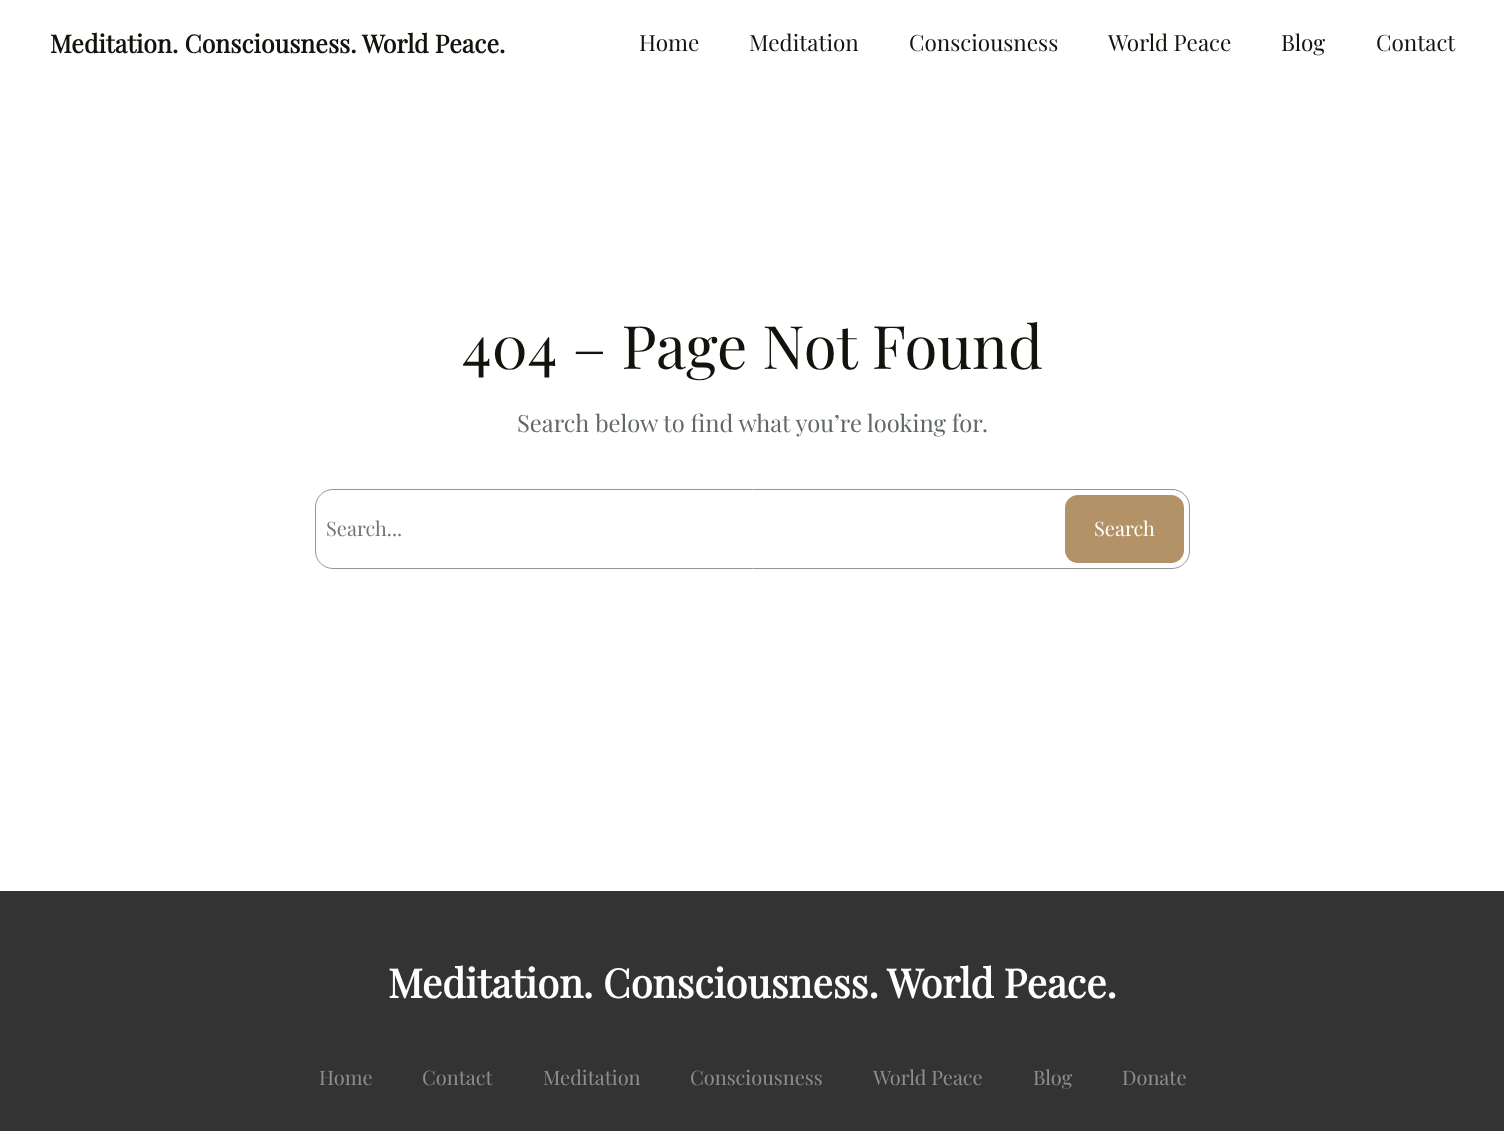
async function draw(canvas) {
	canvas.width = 1504;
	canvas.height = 1131;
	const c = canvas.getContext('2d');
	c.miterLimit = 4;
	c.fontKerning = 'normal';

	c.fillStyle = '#fff';
	c.fillRect(0, 0, 1504, 1131);
	c.font = 'bold 25px Playfair Display';
	c.fillStyle = '#13130d';
	c.fillText('Meditation. Consciousness. World Peace.', 50, 53);
	c.font = '22.5px Playfair Display';
	for (const [text, x, y] of [
		['Home', 639, 51],
		['Meditation', 749, 51],
		['Consciousness', 909, 51],
		['World Peace', 1108, 51],
		['Blog', 1281, 51],
		['Contact', 1376, 51],
	]) {
		c.fillText(text, x, y);
	}
	c.font = '60px Playfair Display';
	c.fillText('404 – Page Not Found', 462, 369);
	c.font = '23.75px Playfair Display';
	c.fillStyle = '#626767';
	c.fillText('Search below to find what you’re looking for.', 517, 432);
	c.beginPath();
	c.roundRect(315.5, 489.5, 874, 79, 17.5);
	c.strokeStyle = '#949494';
	c.stroke();
	c.font = '20px Playfair Display';
	c.fillStyle = '#757575';
	c.fillText('Search...', 326, 536);
	c.fillStyle = '#b29266';
	c.beginPath();
	c.roundRect(1065, 495, 119, 68, 13);
	c.fill();
	c.fillStyle = '#fff';
	c.fillText('Search', 1094, 536);
	c.fillStyle = '#333';
	c.fillRect(0, 891, 1504, 240);
	c.font = 'bold 40px Playfair Display';
	c.fillStyle = '#fff';
	c.fillText('Meditation. Consciousness. World Peace.', 388, 998);
	c.font = '20px Playfair Display';
	c.fillStyle = '#8e8e8e';
	for (const [text, x, y] of [
		['Home', 319, 1085],
		['Contact', 422, 1085],
		['Meditation', 543, 1085],
		['Consciousness', 690, 1085],
		['World Peace', 873, 1085],
		['Blog', 1033, 1085],
		['Donate', 1122, 1085],
	]) {
		c.fillText(text, x, y);
	}
}

draw(document.querySelector('canvas'));
